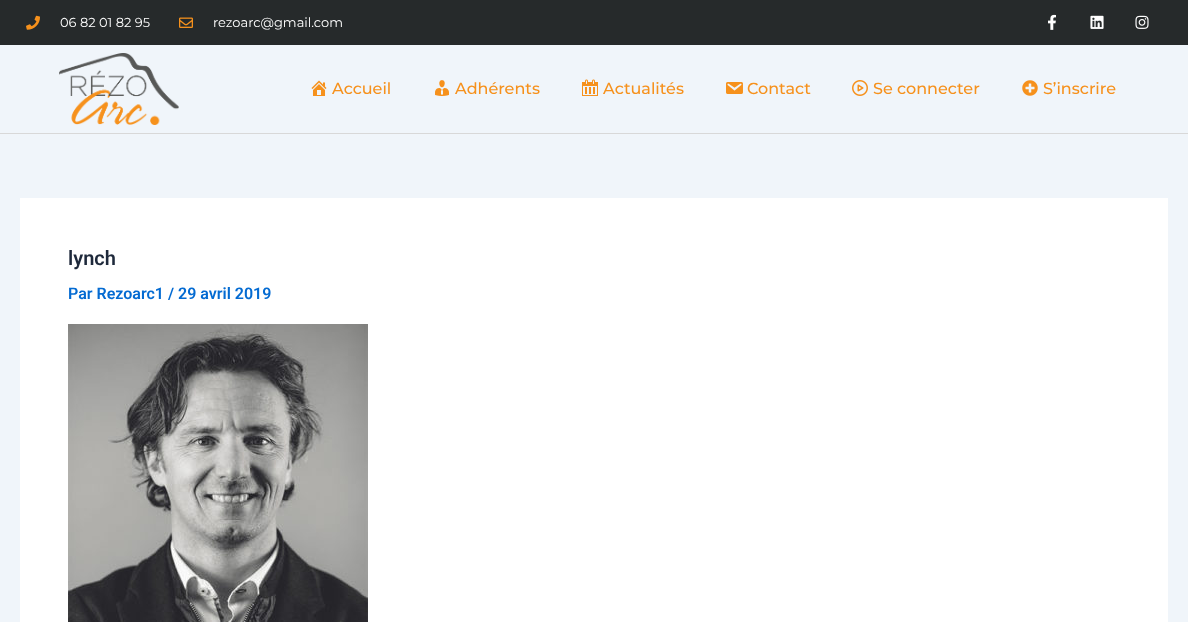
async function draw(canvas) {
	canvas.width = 1188;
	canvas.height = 622;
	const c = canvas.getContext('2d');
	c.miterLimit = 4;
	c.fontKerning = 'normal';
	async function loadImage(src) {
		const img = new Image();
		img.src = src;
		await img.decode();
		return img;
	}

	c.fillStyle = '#f0f5fa';
	c.fillRect(0, 0, 1188, 622);
	c.fillStyle = '#262a2b';
	c.fillRect(0, 0, 1188, 45);
	c.drawImage(await loadImage('img1.png'), 26, 15, 14, 15);
	c.font = '13px Montserrat';
	c.fillStyle = '#fff';
	c.fillText('06 82 01 82 95', 60, 27);
	c.drawImage(await loadImage('img2.png'), 179, 17, 14, 11);
	c.fillText('rezoarc@gmail.com', 213, 27);
	c.drawImage(await loadImage('img3.png'), 1048, 14, 8, 16);
	c.drawImage(await loadImage('img4.png'), 1090, 15, 14, 14);
	c.drawImage(await loadImage('img5.png'), 1135, 15, 14, 14);
	c.fillStyle = '#d8d8d8';
	c.fillRect(0, 133, 1188, 1);
	c.drawImage(await loadImage('img6.png'), 59, 53, 120, 72);
	c.drawImage(await loadImage('img7.png'), 311, 80, 16, 16);
	c.font = '500 16px Montserrat';
	c.fillStyle = '#f6911c';
	c.fillText('Accueil', 332, 94);
	c.drawImage(await loadImage('img8.png'), 435, 80, 14, 16);
	c.fillText('Adhérents', 455, 94);
	c.drawImage(await loadImage('img9.png'), 582, 79, 16, 17);
	c.fillText('Actualités', 603, 94);
	c.drawImage(await loadImage('img10.png'), 726, 82, 17, 12);
	c.fillText('Contact', 747, 94);
	c.drawImage(await loadImage('img11.png'), 852, 80, 16, 16);
	c.fillText('Se connecter', 873, 94);
	c.drawImage(await loadImage('img12.png'), 1022, 80, 16, 16);
	c.fillText('S’inscrire', 1043, 94);
	c.fillStyle = '#fff';
	c.fillRect(20, 198, 1148, 424);
	c.font = '600 20px Roboto';
	c.fillStyle = '#1e293b';
	c.fillText('lynch', 68, 265);
	c.font = '600 16px Roboto';
	c.fillStyle = '#046bd2';
	c.fillText('Par Rezoarc1 / 29 avril 2019', 68, 299);
	c.drawImage(await loadImage('img13.png'), 68, 324, 300, 298);
}

draw(document.querySelector('canvas'));
